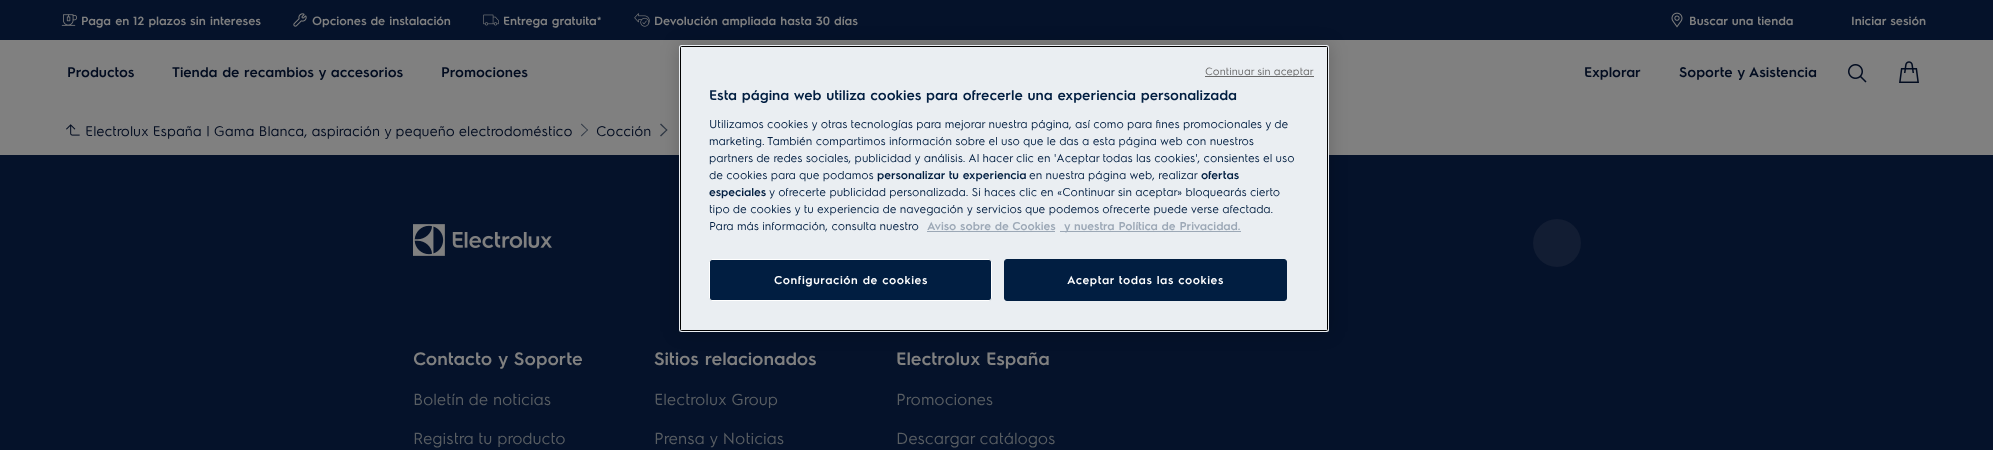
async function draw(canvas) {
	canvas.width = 1993;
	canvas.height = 450;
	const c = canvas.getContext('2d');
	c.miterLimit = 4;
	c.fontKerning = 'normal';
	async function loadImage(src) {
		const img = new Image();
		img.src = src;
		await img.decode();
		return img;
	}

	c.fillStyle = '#808080';
	c.fillRect(0, 0, 1993, 450);
	c.fillStyle = '#05122a';
	c.fillRect(0, 0, 1993, 40);
	c.drawImage(await loadImage('img1.png'), 61, 14, 16, 12);
	c.font = '600 12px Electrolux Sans';
	c.fillStyle = '#808080';
	c.fillText('Paga en 12 plazos sin intereses', 81, 25);
	c.drawImage(await loadImage('img2.png'), 293, 13, 14, 14);
	c.fillText('Opciones de instalación', 312, 25);
	c.drawImage(await loadImage('img3.png'), 483, 14, 16, 12);
	c.fillText('Entrega gratuita*', 503, 25);
	c.drawImage(await loadImage('img4.png'), 634, 13, 16, 14);
	c.fillText('Devolución ampliada hasta 30 días', 654, 25);
	c.drawImage(await loadImage('img5.png'), 1671, 12, 12, 16);
	c.fillText('Buscar una tienda', 1689, 25);
	c.fillText('Iniciar sesión', 1851, 25);
	c.font = '600 14px Electrolux Sans';
	c.fillStyle = '#020c20';
	for (const [text, x, y] of [
		['Productos', 67, 77],
		['Tienda de recambios y accesorios', 172, 77],
		['Promociones', 441, 77],
		['Explorar', 1584, 77],
		['Soporte y Asistencia', 1679, 77],
	]) {
		c.fillText(text, x, y);
	}
	c.drawImage(await loadImage('img6.png'), 1848, 64, 19, 19);
	c.drawImage(await loadImage('img7.png'), 1899, 61, 20, 22);
	c.drawImage(await loadImage('img8.png'), 66, 124, 14, 12);
	c.font = '14px Electrolux Sans';
	c.fillText('Electrolux España | Gama Blanca, aspiración y pequeño electrodoméstico', 85, 136);
	c.fillStyle = '#2d3643';
	c.beginPath();
	c.moveTo(581.5, 123.5);
	c.lineTo(588, 130);
	c.lineTo(587.5, 130.5);
	c.lineTo(581, 124.5);
	c.closePath();
	c.fill();
	c.beginPath();
	c.moveTo(587.5, 129.5);
	c.lineTo(588, 130);
	c.lineTo(581.5, 136.5);
	c.lineTo(581, 135.5);
	c.closePath();
	c.fill();
	c.fillStyle = '#020c20';
	c.fillText('Cocción', 596, 136);
	c.fillStyle = '#2d3643';
	c.beginPath();
	c.moveTo(661, 123.5);
	c.lineTo(667.5, 130);
	c.lineTo(666.5, 130.5);
	c.lineTo(660, 124.5);
	c.closePath();
	c.fill();
	c.beginPath();
	c.moveTo(666.5, 129.5);
	c.lineTo(667.5, 130);
	c.lineTo(661, 136.5);
	c.lineTo(660, 135.5);
	c.closePath();
	c.fill();
	c.fillStyle = '#05122a';
	c.fillRect(0, 155, 1993, 295);
	c.drawImage(await loadImage('img9.png'), 413, 224, 139, 32);
	c.fillStyle = '#121d33';
	c.beginPath();
	c.arc(1557, 243, 24, 0, 2 * Math.PI);
	c.fill();
	c.font = '600 18px Electrolux Sans';
	c.fillStyle = '#808080';
	c.fillText('Contacto y Soporte', 413, 365);
	c.font = '16px Electrolux Sans';
	c.fillStyle = '#595e63';
	c.fillText('Boletín de noticias', 413, 405);
	c.fillText('Registra tu producto', 413, 444);
	c.font = '600 18px Electrolux Sans';
	c.fillStyle = '#808080';
	c.fillText('Sitios relacionados', 654, 365);
	c.font = '16px Electrolux Sans';
	c.fillStyle = '#595e63';
	c.fillText('Electrolux Group', 654, 405);
	c.fillText('Prensa y Noticias', 654, 444);
	c.font = '600 18px Electrolux Sans';
	c.fillStyle = '#808080';
	c.fillText('Electrolux España', 896, 365);
	c.font = '16px Electrolux Sans';
	c.fillStyle = '#595e63';
	c.fillText('Promociones', 896, 405);
	c.fillText('Descargar catálogos', 896, 444);
	c.fillStyle = '#00000033';
	c.filter = 'blur(9px)';
	c.beginPath();
	c.roundRect(679, 45, 650, 287, 2.5);
	c.fill();
	c.filter = 'none';
	c.fillStyle = '#eaeef2';
	c.beginPath();
	c.roundRect(679, 45, 650, 287, 2.5);
	c.fill();
	c.beginPath();
	c.roundRect(680.5, 46.5, 647, 284, 1);
	c.strokeStyle = '#000';
	c.stroke();
	c.fillStyle = '#696969';
	c.fillRect(1205, 76, 109, 1);
	c.letterSpacing = '0.1px';
	c.font = '10.5px Electrolux Sans';
	c.fillText('Continuar sin aceptar', 1205, 75);
	c.letterSpacing = '0px';
	c.font = '600 14px Electrolux Sans';
	c.fillStyle = '#011e41';
	c.fillText('Esta página web utiliza cookies para ofrecerle una experiencia personalizada', 709, 100);
	c.font = '11.38px Electrolux Sans';
	for (const [text, x, y] of [
		['Utilizamos cookies y otras tecnologías para mejorar nuestra página, así como para fines promocionales y de', 709, 128],
		['marketing. También compartimos información sobre el uso que le das a esta página web con nuestros', 709, 145],
		['partners de redes sociales, publicidad y análisis. Al hacer clic en \'Aceptar todas las cookies\', consientes el uso', 709, 162],
		['de cookies para que podamos', 709, 179],
	]) {
		c.fillText(text, x, y);
	}
	c.font = '600 11.38px Electrolux Sans';
	c.fillText('personalizar tu experiencia', 877, 179);
	c.font = '11.38px Electrolux Sans';
	c.fillText('en nuestra página web, realizar', 1029, 179);
	c.font = '600 11.38px Electrolux Sans';
	c.fillText('ofertas', 1201, 179);
	c.fillText('especiales', 709, 196);
	c.font = '11.38px Electrolux Sans';
	for (const [text, x, y] of [
		['y ofrecerte publicidad personalizada. Si haces clic en «Continuar sin aceptar» bloquearás cierto', 769, 196],
		['tipo de cookies y tu experiencia de navegación y servicios que podemos ofrecerte puede verse afectada.', 709, 213],
		['Para más información, consulta nuestro', 709, 230],
	]) {
		c.fillText(text, x, y);
	}
	c.font = '600 11.38px Electrolux Sans';
	c.fillStyle = '#9ca8b6';
	c.fillText('Aviso sobre de Cookies', 927, 230);
	c.fillRect(927, 231, 128, 1);
	c.fillRect(1060, 231, 181, 1);
	c.fillText('y nuestra Política de Privacidad.', 1064, 230);
	c.fillStyle = '#011e41';
	c.beginPath();
	c.roundRect(709.5, 259.5, 282, 41, 2.5);
	c.fill();
	c.strokeStyle = '#fff';
	c.stroke();
	c.letterSpacing = '0.6px';
	c.fillStyle = '#fff';
	c.fillText('Configuración de cookies', 774, 284);
	c.fillStyle = '#011e41';
	c.beginPath();
	c.roundRect(1004.5, 259.5, 282, 41, 2.5);
	c.fill();
	c.strokeStyle = '#011e41';
	c.stroke();
	c.fillStyle = '#fff';
	c.fillText('Aceptar todas las cookies', 1067, 284);
}

draw(document.querySelector('canvas'));
